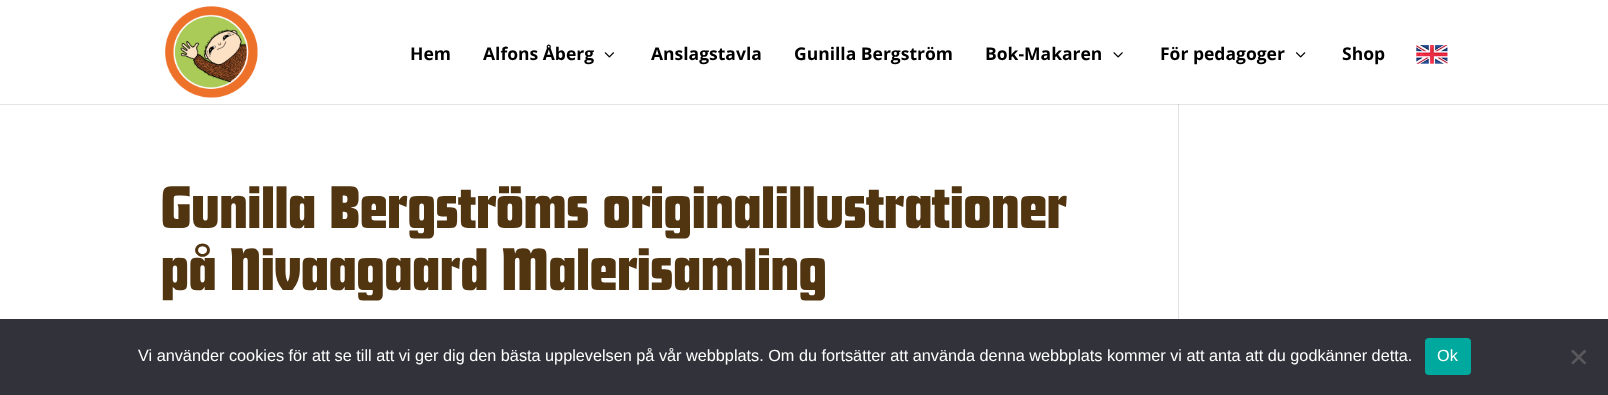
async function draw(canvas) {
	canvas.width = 1608;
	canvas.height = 395;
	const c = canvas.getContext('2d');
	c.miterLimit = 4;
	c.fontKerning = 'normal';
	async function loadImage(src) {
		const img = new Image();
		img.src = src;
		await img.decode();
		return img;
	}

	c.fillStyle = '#fff';
	c.fillRect(0, 0, 1608, 395);
	c.fillStyle = '#e2e2e2';
	c.fillRect(1178, 104, 1, 215);
	c.fillStyle = '#0000001a';
	c.beginPath();
	c.moveTo(0, 104);
	c.lineTo(0, 105);
	c.lineTo(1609, 105);
	c.lineTo(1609, 1);
	c.lineTo(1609, 104);
	c.closePath();
	c.fill();
	c.drawImage(await loadImage('img1.png'), 165, 6, 93, 92);
	c.font = 'bold 17.5px Open Sans';
	c.fillStyle = '#000';
	c.fillText('Hem', 410, 60);
	c.fillText('Alfons Åberg', 483, 60);
	c.drawImage(await loadImage('img2.png'), 604, 52, 10, 6);
	for (const [text, x, y] of [
		['Anslagstavla', 651, 60],
		['Gunilla Bergström', 794, 60],
		['Bok-Makaren', 985, 60],
	]) {
		c.fillText(text, x, y);
	}
	c.drawImage(await loadImage('img3.png'), 1113, 52, 10, 6);
	c.fillText('För pedagoger', 1160, 60);
	c.drawImage(await loadImage('img4.png'), 1296, 52, 10, 6);
	c.fillText('Shop', 1342, 60);
	c.drawImage(await loadImage('img5.png'), 1416, 45, 32, 19);
	c.font = '62.5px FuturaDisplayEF';
	c.fillStyle = '#513410';
	c.fillText('Gunilla Bergströms originalillustrationer', 161, 228);
	c.fillText('på Nivaagaard Malerisamling', 161, 290);
	c.fillStyle = '#32323a';
	c.fillRect(0, 319, 1608, 76);
	c.font = '16.25px Liberation Sans';
	c.fillStyle = '#fff';
	c.fillText('Vi använder cookies för att se till att vi ger dig den bästa upplevelsen på vår webbplats. Om du fortsätter att använda denna webbplats kommer vi att anta att du godkänner detta.', 138, 361);
	c.fillStyle = '#00a99d';
	c.beginPath();
	c.roundRect(1425, 338, 46, 37, 4);
	c.fill();
	c.fillStyle = '#fff';
	c.fillText('Ok', 1437, 361);
	c.fillStyle = '#59595d';
	c.beginPath();
	c.moveTo(1584.5, 349.5);
	c.lineTo(1586.5, 351.5);
	c.lineTo(1573, 364.5);
	c.lineTo(1571, 363);
	c.closePath();
	c.fill();
	c.beginPath();
	c.moveTo(1571, 351.5);
	c.lineTo(1573, 349.5);
	c.lineTo(1586.5, 363);
	c.lineTo(1584.5, 364.5);
	c.closePath();
	c.fill();
}

draw(document.querySelector('canvas'));
